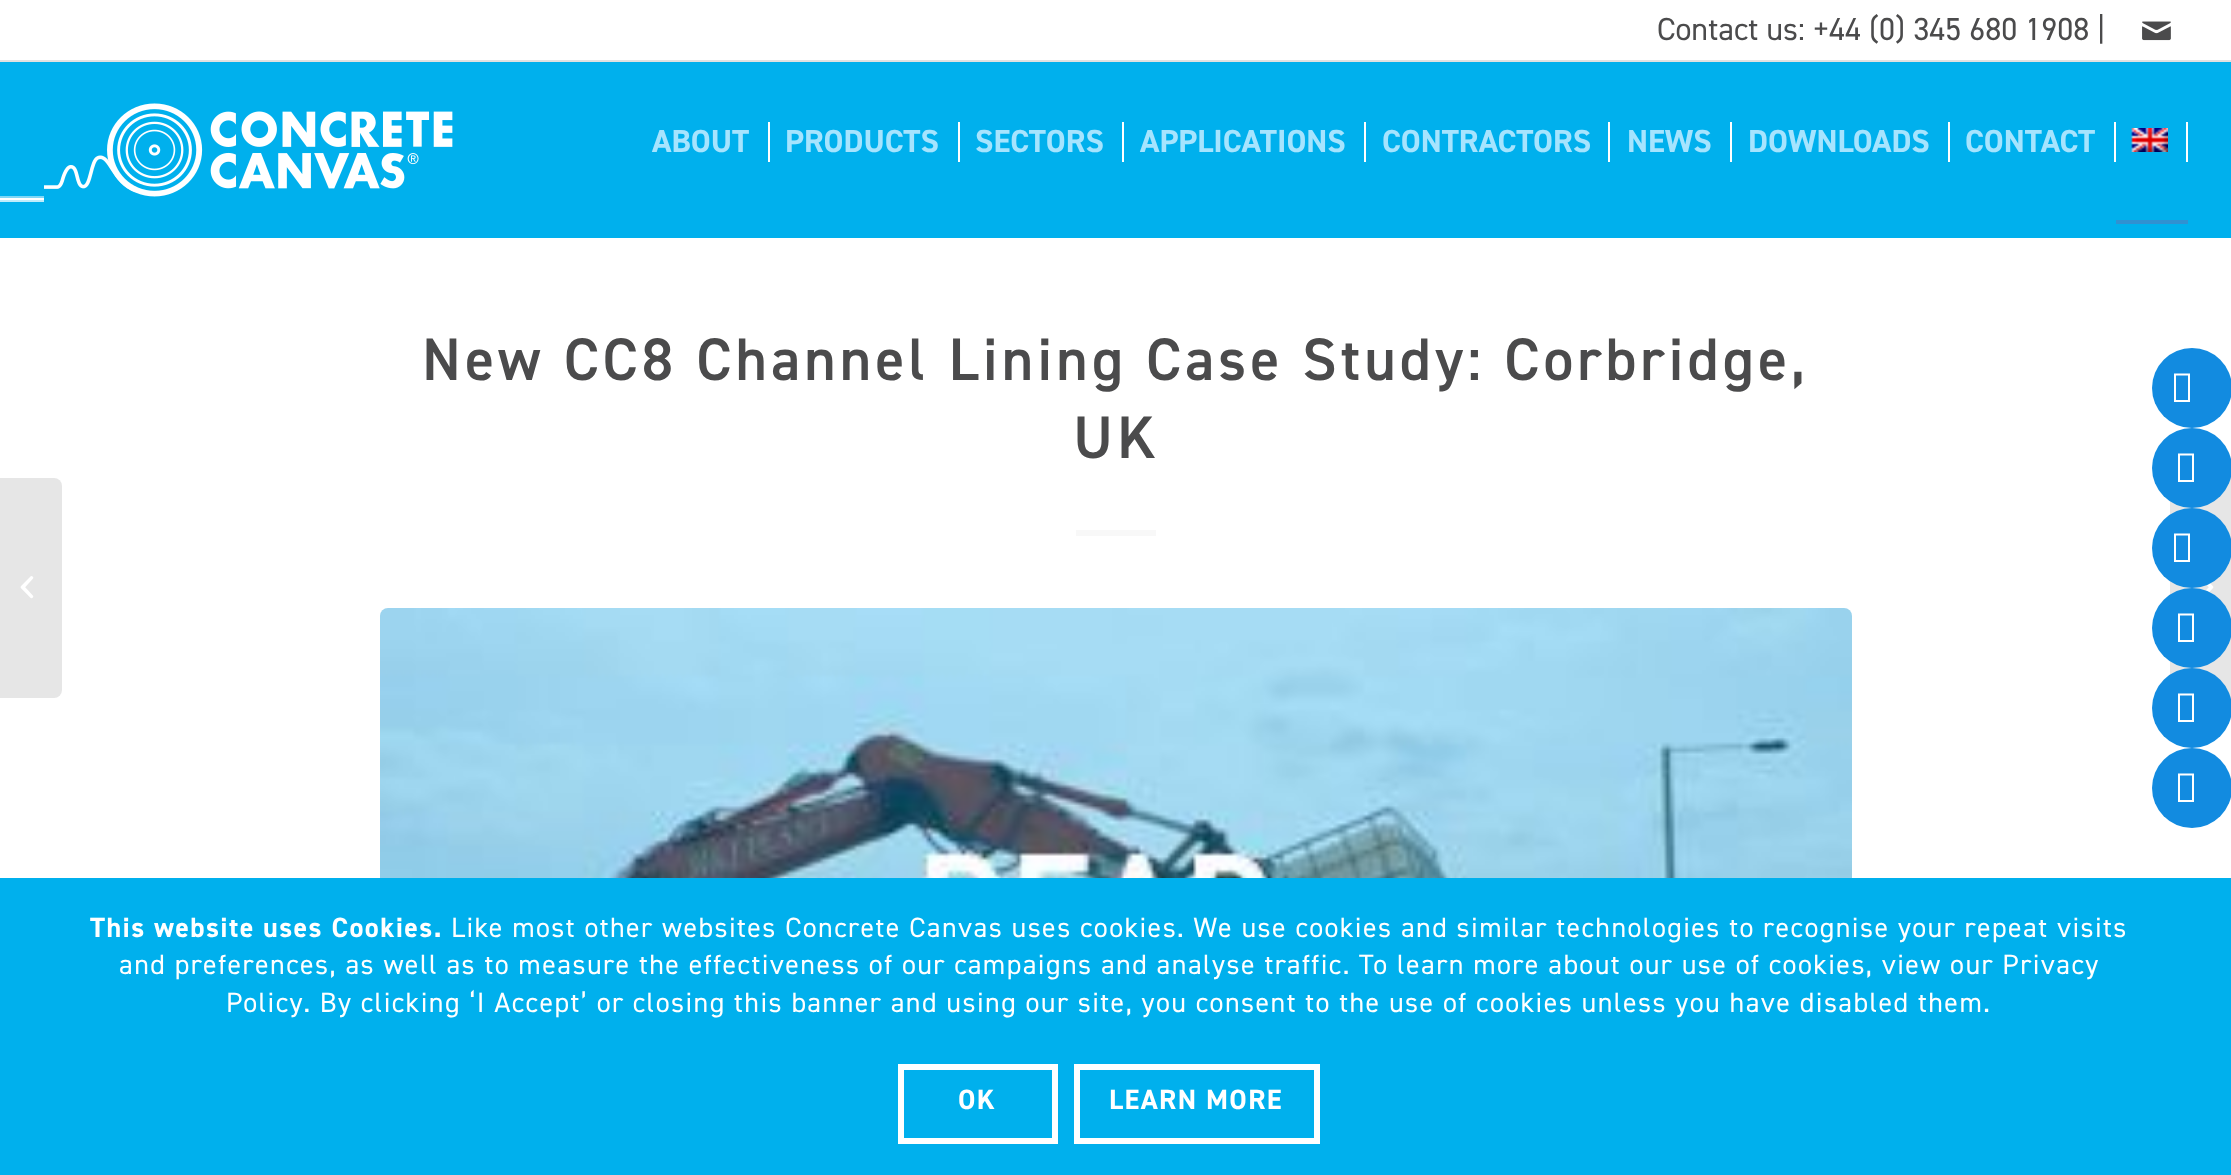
async function draw(canvas) {
	canvas.width = 2231;
	canvas.height = 1175;
	const c = canvas.getContext('2d');
	c.miterLimit = 4;
	c.fontKerning = 'normal';
	async function loadImage(src) {
		const img = new Image();
		img.src = src;
		await img.decode();
		return img;
	}

	c.fillStyle = '#fff';
	c.fillRect(0, 0, 2231, 1175);
	c.font = '32px "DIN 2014"';
	c.fillStyle = '#4b4b4c';
	c.fillText('Contact us: +44 (0) 345 680 1908 |', 1657, 40);
	c.drawImage(await loadImage('img1.png'), 2142, 21, 29, 20);
	c.fillStyle = '#00b0ed';
	c.fillRect(0, 62, 2231, 176);
	c.fillStyle = '#e1e1e1';
	c.fillRect(0, 60, 2231, 2);
	c.drawImage(await loadImage('img2.png'), 44, 103, 409, 99);
	c.fillStyle = '#fff';
	c.fillRect(768, 122, 2, 40);
	c.font = 'bold 32px "DIN 2014"';
	c.fillStyle = '#a6e4fe';
	c.fillText('ABOUT', 652, 152);
	c.fillStyle = '#fff';
	c.fillRect(958, 122, 2, 40);
	c.fillStyle = '#a6e4fe';
	c.fillText('PRODUCTS', 785, 152);
	c.fillStyle = '#fff';
	c.fillRect(1122, 122, 2, 40);
	c.fillStyle = '#a6e4fe';
	c.fillText('SECTORS', 975, 152);
	c.fillStyle = '#fff';
	c.fillRect(1364, 122, 2, 40);
	c.fillStyle = '#a6e4fe';
	c.fillText('APPLICATIONS', 1140, 152);
	c.fillStyle = '#fff';
	c.fillRect(1608, 122, 2, 40);
	c.fillStyle = '#a6e4fe';
	c.fillText('CONTRACTORS', 1382, 152);
	c.fillStyle = '#fff';
	c.fillRect(1730, 122, 2, 40);
	c.fillStyle = '#a6e4fe';
	c.fillText('NEWS', 1627, 152);
	c.fillStyle = '#fff';
	c.fillRect(1948, 122, 2, 40);
	c.fillStyle = '#a6e4fe';
	c.fillText('DOWNLOADS', 1748, 152);
	c.fillStyle = '#fff';
	c.fillRect(2114, 122, 2, 40);
	c.fillStyle = '#a6e4fe';
	c.fillText('CONTACT', 1965, 152);
	c.fillStyle = '#fff';
	c.fillRect(2186, 122, 2, 40);
	c.drawImage(await loadImage('img3.png'), 2131, 128, 37, 24);
	for (const [x, y, w, h, color] of [
		[2116, 220, 72, 4, '#3091d1'],
		[0, 198, 44, 2, '#fff'],
		[0, 196, 44, 2, '#80d7f6'],
		[0, 200, 44, 2, '#c0ecfb'],
	]) {
		c.fillStyle = color;
		c.fillRect(x, y, w, h);
	}
	c.letterSpacing = '4px';
	c.font = '600 60px "DIN 2014"';
	c.fillStyle = '#4b4b4c';
	c.fillText('New CC8 Channel Lining Case Study: Corbridge,', 422, 380);
	c.fillText('UK', 1073, 458);
	c.fillStyle = '#f8f8f8';
	c.fillRect(1076, 530, 80, 6);
	c.drawImage(await loadImage('img4.png'), 380, 608, 1472, 270);
	c.fillStyle = '#e6e6e6';
	c.beginPath();
	c.roundRect(0, 478, 62, 220, [0, 8, 8, 0]);
	c.fill();
	c.drawImage(await loadImage('img5.png'), 20, 576, 14, 23);
	c.fillRect(2170, 478, 61, 220);
	c.drawImage(await loadImage('img6.png'), 2205, 583, 9, 9);
	c.fillStyle = '#128be0';
	c.beginPath();
	c.arc(2192, 388, 40, 0, 2 * Math.PI);
	c.fill();
	c.fillStyle = '#fff';
	c.beginPath();
	c.moveTo(2174, 402);
	c.lineTo(2174, 373.5);
	c.lineTo(2190, 373.5);
	c.lineTo(2190, 402);
	c.closePath();
	c.moveTo(2176, 400);
	c.lineTo(2188, 400);
	c.lineTo(2188, 375.5);
	c.lineTo(2176, 375.5);
	c.closePath();
	c.fill();
	c.fillStyle = '#128be0';
	c.beginPath();
	c.arc(2192, 468, 40, 0, 2 * Math.PI);
	c.fill();
	c.fillStyle = '#fff';
	c.beginPath();
	c.moveTo(2178, 482);
	c.lineTo(2178, 453.5);
	c.lineTo(2194, 453.5);
	c.lineTo(2194, 482);
	c.closePath();
	c.moveTo(2180, 480);
	c.lineTo(2192, 480);
	c.lineTo(2192, 455.5);
	c.lineTo(2180, 455.5);
	c.closePath();
	c.fill();
	c.fillStyle = '#128be0';
	c.beginPath();
	c.arc(2192, 548, 40, 0, 2 * Math.PI);
	c.fill();
	c.fillStyle = '#fff';
	c.beginPath();
	c.moveTo(2174, 562);
	c.lineTo(2174, 533.5);
	c.lineTo(2190, 533.5);
	c.lineTo(2190, 562);
	c.closePath();
	c.moveTo(2176, 560);
	c.lineTo(2188, 560);
	c.lineTo(2188, 535.5);
	c.lineTo(2176, 535.5);
	c.closePath();
	c.fill();
	c.fillStyle = '#128be0';
	c.beginPath();
	c.arc(2192, 628, 40, 0, 2 * Math.PI);
	c.fill();
	c.fillStyle = '#fff';
	c.beginPath();
	c.moveTo(2178, 642);
	c.lineTo(2178, 613.5);
	c.lineTo(2194, 613.5);
	c.lineTo(2194, 642);
	c.closePath();
	c.moveTo(2180, 640);
	c.lineTo(2192, 640);
	c.lineTo(2192, 615.5);
	c.lineTo(2180, 615.5);
	c.closePath();
	c.fill();
	c.fillStyle = '#128be0';
	c.beginPath();
	c.arc(2192, 708, 40, 0, 2 * Math.PI);
	c.fill();
	c.fillStyle = '#fff';
	c.beginPath();
	c.moveTo(2178, 722);
	c.lineTo(2178, 693.5);
	c.lineTo(2194, 693.5);
	c.lineTo(2194, 722);
	c.closePath();
	c.moveTo(2180, 720);
	c.lineTo(2192, 720);
	c.lineTo(2192, 695.5);
	c.lineTo(2180, 695.5);
	c.closePath();
	c.fill();
	c.fillStyle = '#128be0';
	c.beginPath();
	c.arc(2192, 788, 40, 0, 2 * Math.PI);
	c.fill();
	c.fillStyle = '#fff';
	c.beginPath();
	c.moveTo(2178, 802);
	c.lineTo(2178, 773.5);
	c.lineTo(2194, 773.5);
	c.lineTo(2194, 802);
	c.closePath();
	c.moveTo(2180, 800);
	c.lineTo(2192, 800);
	c.lineTo(2192, 775.5);
	c.lineTo(2180, 775.5);
	c.closePath();
	c.fill();
	c.fillStyle = '#00b0ed';
	c.fillRect(0, 878, 2231, 297);
	c.letterSpacing = '1.4px';
	c.font = 'bold 28px "DIN 2014"';
	c.fillStyle = '#fff';
	c.fillText('This website uses Cookies.', 90, 937);
	c.font = '28px "DIN 2014"';
	for (const [text, x, y] of [
		['Like most other websites Concrete Canvas uses cookies. We use cookies and similar technologies to recognise your repeat visits', 451, 937],
		['and preferences, as well as to measure the effectiveness of our campaigns and analyse traffic. To learn more about our use of cookies, view our Privacy', 119, 974],
		['Policy. By clicking ‘I Accept’ or closing this banner and using our site, you consent to the use of cookies unless you have disabled them.', 226, 1012],
	]) {
		c.fillText(text, x, y);
	}
	c.strokeStyle = '#fff';
	c.lineWidth = 6;
	c.strokeRect(901, 1067, 154, 74);
	c.font = 'bold 28px "DIN 2014"';
	c.fillText('OK', 958, 1109);
	c.strokeRect(1077, 1067, 240, 74);
	c.fillText('LEARN MORE', 1109, 1109);
}

draw(document.querySelector('canvas'));
